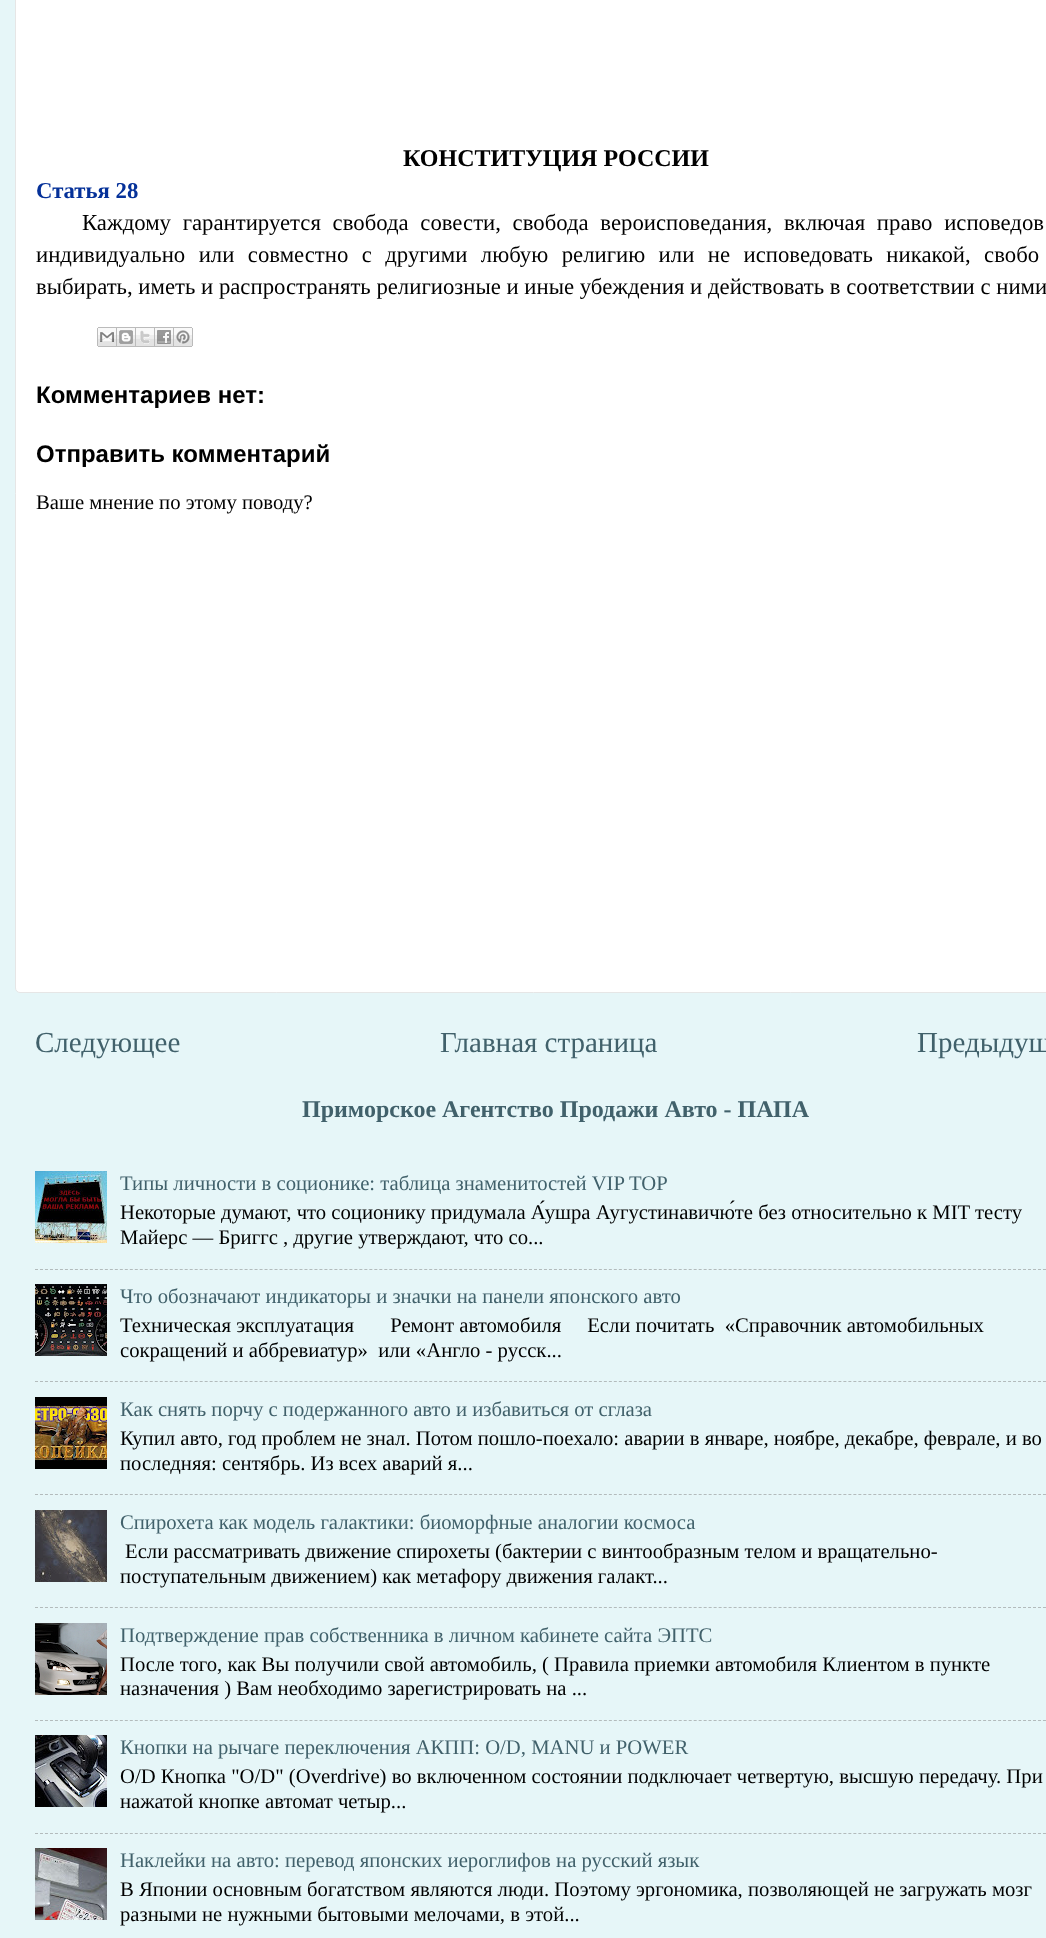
async function draw(canvas) {
	canvas.width = 1046;
	canvas.height = 1938;
	const c = canvas.getContext('2d');
	c.miterLimit = 4;
	c.fontKerning = 'normal';
	async function loadImage(src) {
		const img = new Image();
		img.src = src;
		await img.decode();
		return img;
	}

	c.fillStyle = '#e6f6f8';
	c.fillRect(0, 0, 1046, 1938);
	c.fillStyle = '#fff';
	c.beginPath();
	c.roundRect(15.5, -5.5, 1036, 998, 4.5);
	c.fill();
	c.strokeStyle = '#e6e6e6';
	c.stroke();
	c.font = 'bold 24px Liberation Serif';
	c.fillStyle = '#000';
	c.fillText('КОНСТИТУЦИЯ РОССИИ', 403, 166);
	c.font = 'bold 22.75px Liberation Serif';
	c.fillStyle = '#053199';
	c.fillText('Статья 28', 36, 198);
	c.wordSpacing = '6px';
	c.font = '22.75px Liberation Serif';
	c.fillStyle = '#000';
	c.fillText('Каждому гарантируется свобода совести, свобода вероисповедания, включая право исповедов', 82, 230);
	c.wordSpacing = '7.75px';
	c.fillText('индивидуально или совместно с другими любую религию или не исповедовать никакой, свобо', 36, 262);
	c.wordSpacing = '0px';
	c.fillText('выбирать, иметь и распространять религиозные и иные убеждения и действовать в соответствии с ними', 36, 294);
	c.drawImage(await loadImage('img1.png'), 97, 327, 20, 20);
	c.drawImage(await loadImage('img2.png'), 117, 327, 19, 20);
	c.drawImage(await loadImage('img3.png'), 136, 327, 19, 20);
	c.drawImage(await loadImage('img4.png'), 155, 327, 19, 20);
	c.drawImage(await loadImage('img5.png'), 174, 327, 19, 20);
	c.font = 'bold 24px Liberation Sans';
	c.fillText('Комментариев нет:', 36, 403);
	c.fillText('Отправить комментарий', 36, 462);
	c.font = '20.7px Liberation Serif';
	c.fillText('Ваше мнение по этому поводу?', 36, 509);
	c.font = '29px Liberation Serif';
	c.fillStyle = '#41616b';
	for (const [text, x, y] of [
		['Следующее', 35, 1052],
		['Главная страница', 440, 1052],
		['Предыдущ', 917, 1052],
	]) {
		c.fillText(text, x, y);
	}
	c.font = 'bold 24px Liberation Serif';
	c.fillText('Приморское Агентство Продажи Авто - ПАПА', 302, 1117);
	c.drawImage(await loadImage('img6.png'), 35, 1171, 72, 72);
	c.font = '20.7px Liberation Serif';
	c.fillText('Типы личности в соционике: таблица знаменитостей VIP TOP', 120, 1190);
	c.fillStyle = '#000';
	c.fillText('Некоторые думают, что соционику придумала А́ушра Аугустинавичю́те без относительно к MIT тесту', 120, 1219);
	c.fillText('Майерс — Бриггс , другие утверждают, что со...', 120, 1244);
	c.beginPath();
	c.moveTo(35, 1269.5);
	c.lineTo(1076, 1269.5);
	c.strokeStyle = '#b3bbbc';
	c.setLineDash([3, 1.99]);
	c.stroke();
	c.drawImage(await loadImage('img7.png'), 35, 1284, 72, 72);
	c.fillStyle = '#41616b';
	c.fillText('Что обозначают индикаторы и значки на панели японского авто', 120, 1303);
	c.fillStyle = '#000';
	c.fillText('Техническая эксплуатация       Ремонт автомобиля     Если почитать  «Справочник автомобильных', 120, 1332);
	c.fillText('сокращений и аббревиатур»  или «Англо - русск...', 120, 1357);
	c.beginPath();
	c.moveTo(35, 1381.5);
	c.lineTo(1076, 1381.5);
	c.stroke();
	c.drawImage(await loadImage('img8.png'), 35, 1397, 72, 72);
	c.fillStyle = '#41616b';
	c.fillText('Как снять порчу с подержанного авто и избавиться от сглаза', 120, 1416);
	c.fillStyle = '#000';
	c.fillText('Купил авто, год проблем не знал. Потом пошло-поехало: аварии в январе, ноябре, декабре, феврале, и во', 120, 1445);
	c.fillText('последняя: сентябрь. Из всех аварий я...', 120, 1470);
	c.beginPath();
	c.moveTo(35, 1494.5);
	c.lineTo(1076, 1494.5);
	c.stroke();
	c.drawImage(await loadImage('img9.png'), 35, 1510, 72, 72);
	c.fillStyle = '#41616b';
	c.fillText('Спирохета как модель галактики: биоморфные аналогии космоса', 120, 1529);
	c.fillStyle = '#000';
	c.fillText('Если рассматривать движение спирохеты (бактерии с винтообразным телом и вращательно-', 125, 1558);
	c.fillText('поступательным движением) как метафору движения галакт...', 120, 1583);
	c.beginPath();
	c.moveTo(35, 1607.5);
	c.lineTo(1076, 1607.5);
	c.stroke();
	c.drawImage(await loadImage('img10.png'), 35, 1623, 72, 72);
	c.fillStyle = '#41616b';
	c.fillText('Подтверждение прав собственника в личном кабинете сайта ЭПТС', 120, 1642);
	c.fillStyle = '#000';
	c.fillText('После того, как Вы получили свой автомобиль, ( Правила приемки автомобиля Клиентом в пункте', 120, 1671);
	c.fillText('назначения ) Вам необходимо зарегистрировать на ...', 120, 1695);
	c.beginPath();
	c.moveTo(35, 1720.5);
	c.lineTo(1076, 1720.5);
	c.stroke();
	c.drawImage(await loadImage('img11.png'), 35, 1735, 72, 72);
	c.fillStyle = '#41616b';
	c.fillText('Кнопки на рычаге переключения АКПП: O/D, MANU и POWER', 120, 1754);
	c.fillStyle = '#000';
	c.fillText('O/D Кнопка "O/D" (Overdrive) во включенном состоянии подключает четвертую, высшую передачу. При', 120, 1783);
	c.fillText('нажатой кнопке автомат четыр...', 120, 1808);
	c.beginPath();
	c.moveTo(35, 1833.5);
	c.lineTo(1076, 1833.5);
	c.stroke();
	c.drawImage(await loadImage('img12.png'), 35, 1848, 72, 72);
	c.fillStyle = '#41616b';
	c.fillText('Наклейки на авто: перевод японских иероглифов на русский язык', 120, 1867);
	c.fillStyle = '#000';
	c.fillText('В Японии основным богатством являются люди. Поэтому эргономика, позволяющей не загружать мозг', 120, 1896);
	c.fillText('разными не нужными бытовыми мелочами, в этой...', 120, 1921);
}

draw(document.querySelector('canvas'));
